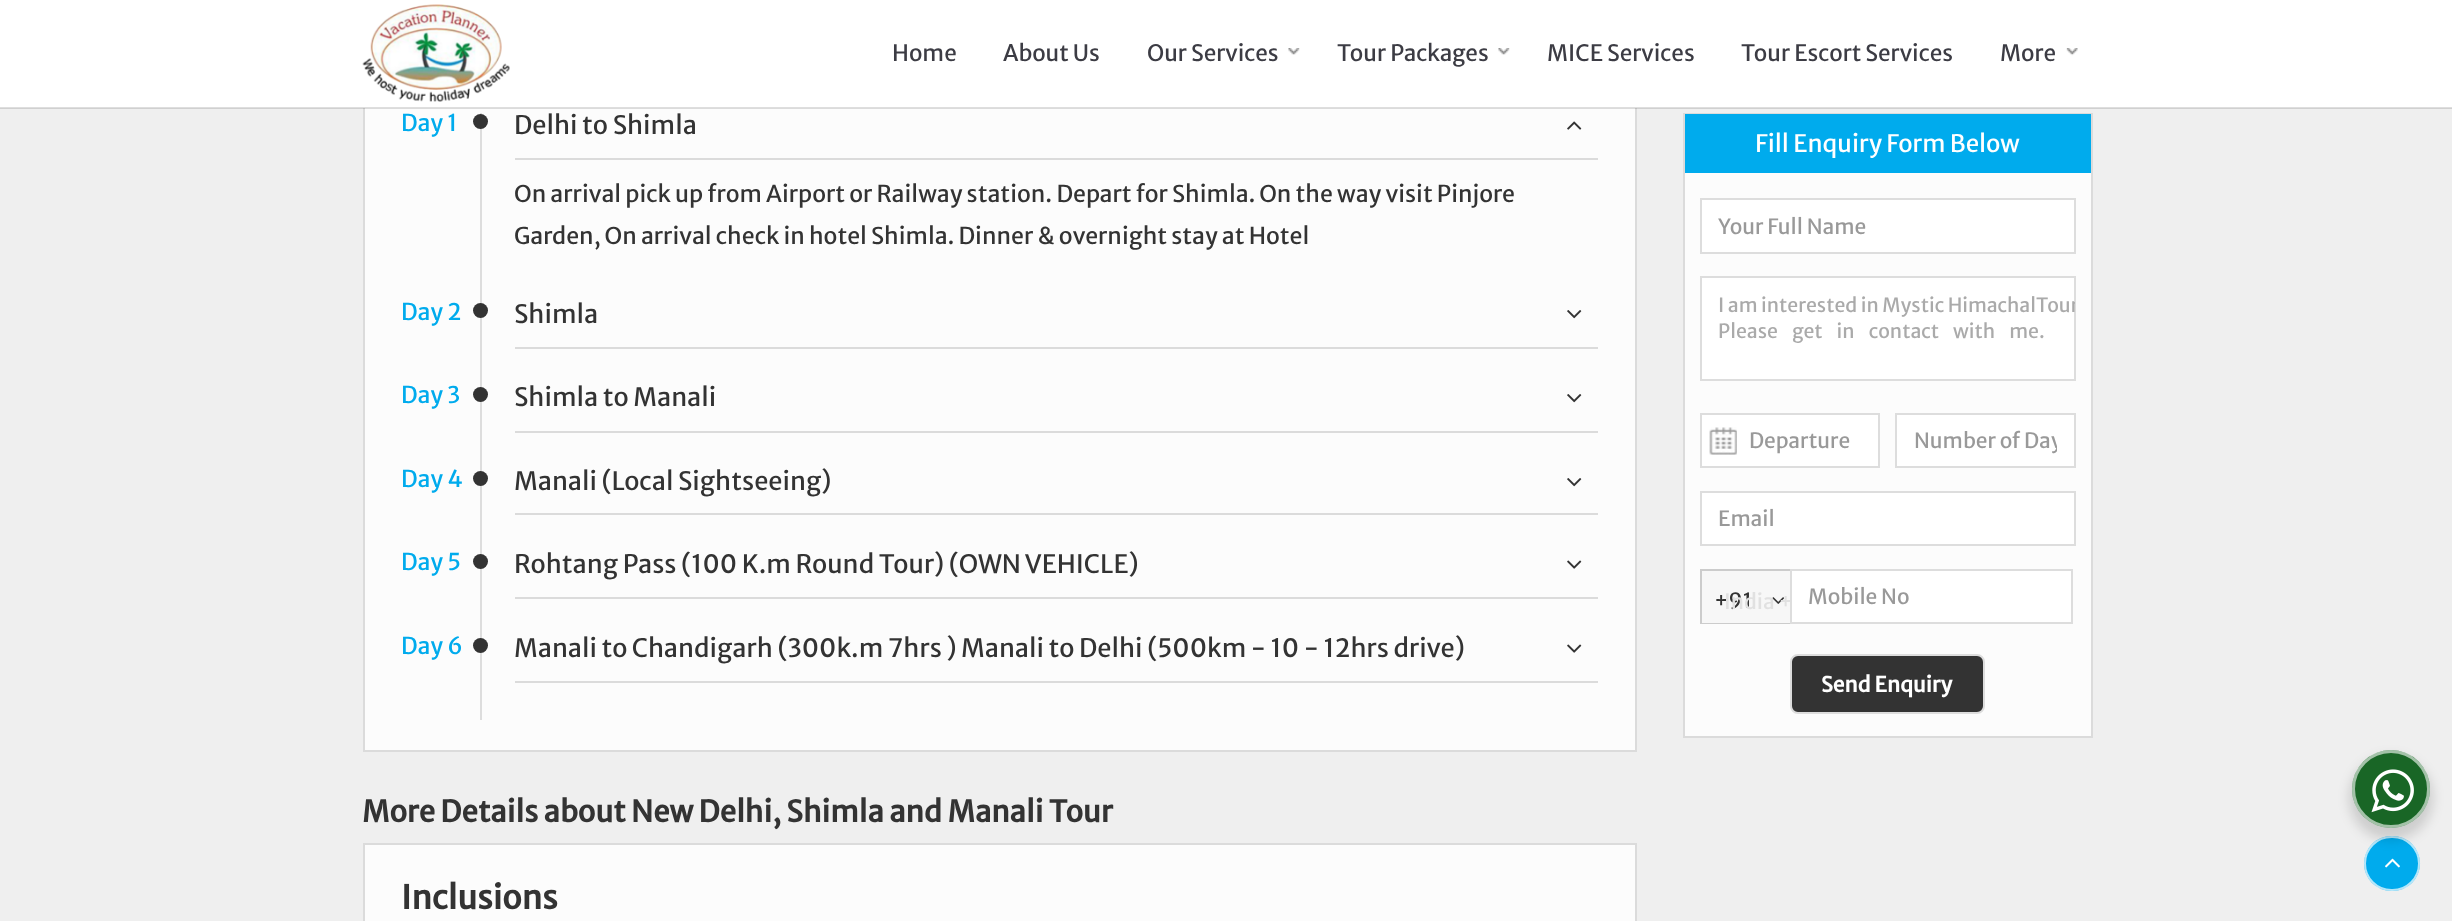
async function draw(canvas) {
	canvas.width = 2452;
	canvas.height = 921;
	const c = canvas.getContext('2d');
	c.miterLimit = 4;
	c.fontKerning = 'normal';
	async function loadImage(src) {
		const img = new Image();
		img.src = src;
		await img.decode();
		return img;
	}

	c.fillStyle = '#efefef';
	c.fillRect(0, 0, 2452, 921);
	c.fillStyle = '#fcfcfc';
	c.fillRect(365, 108, 1270, 642);
	c.strokeStyle = '#dbdbdb';
	c.lineWidth = 2;
	c.strokeRect(364, 3, 1272, 748);
	c.fillStyle = '#fff';
	c.fillRect(0, 0, 2452, 108);
	c.fillStyle = '#00000021';
	c.fillRect(0, 107, 2452, 2);
	c.drawImage(await loadImage('img1.png'), 362, 4, 148, 98);
	c.font = '22.5px Merriweather Sans';
	c.fillStyle = '#3c3c44';
	for (const [text, x, y] of [
		['Home', 892, 61],
		['About Us', 1003, 61],
		['Our Services', 1147, 61],
	]) {
		c.fillText(text, x, y);
	}
	c.drawImage(await loadImage('img2.png'), 1288, 48, 12, 7);
	c.fillText('Tour Packages', 1337, 61);
	c.drawImage(await loadImage('img2.png'), 1498, 48, 12, 7);
	for (const [text, x, y] of [
		['MICE Services', 1547, 61],
		['Tour Escort Services', 1741, 61],
		['More', 2000, 61],
	]) {
		c.fillText(text, x, y);
	}
	c.drawImage(await loadImage('img3.png'), 2066, 48, 12, 8);
	c.font = '23.1px Merriweather Sans';
	c.fillStyle = '#00abed';
	c.fillText('Day 1', 401, 131);
	c.fillStyle = '#ddd';
	c.fillRect(480, 113, 2, 607);
	c.fillStyle = '#333';
	c.beginPath();
	c.arc(480.5, 121.5, 7.5, 0, 2 * Math.PI);
	c.fill();
	c.fillStyle = '#dbdbdb';
	c.fillRect(515, 158, 1083, 2);
	c.font = '25.4px Merriweather Sans';
	c.fillStyle = '#333';
	c.fillText('Delhi to Shimla', 514, 134);
	c.drawImage(await loadImage('img4.png'), 1567, 121, 15, 9);
	c.font = '23.1px Merriweather Sans';
	c.fillText('On arrival pick up from Airport or Railway station. Depart for Shimla. On the way visit Pinjore', 514, 202);
	c.fillText('Garden, On arrival check in hotel Shimla. Dinner & overnight stay at Hotel', 514, 244);
	c.fillStyle = '#00abed';
	c.fillText('Day 2', 401, 320);
	c.fillStyle = '#333';
	c.beginPath();
	c.arc(480.5, 310.5, 7.5, 0, 2 * Math.PI);
	c.fill();
	c.fillStyle = '#dbdbdb';
	c.fillRect(515, 347, 1083, 2);
	c.font = '25.4px Merriweather Sans';
	c.fillStyle = '#333';
	c.fillText('Shimla', 514, 323);
	c.drawImage(await loadImage('img5.png'), 1567, 310, 15, 9);
	c.font = '23.1px Merriweather Sans';
	c.fillStyle = '#00abed';
	c.fillText('Day 3', 401, 403);
	c.fillStyle = '#333';
	c.beginPath();
	c.arc(480.5, 394.5, 7.5, 0, 2 * Math.PI);
	c.fill();
	c.fillStyle = '#dbdbdb';
	c.fillRect(515, 431, 1083, 2);
	c.font = '25.4px Merriweather Sans';
	c.fillStyle = '#333';
	c.fillText('Shimla to Manali', 514, 406);
	c.drawImage(await loadImage('img5.png'), 1567, 394, 15, 9);
	c.font = '23.1px Merriweather Sans';
	c.fillStyle = '#00abed';
	c.fillText('Day 4', 401, 487);
	c.fillStyle = '#333';
	c.beginPath();
	c.arc(480.5, 478.5, 7.5, 0, 2 * Math.PI);
	c.fill();
	c.fillStyle = '#dbdbdb';
	c.fillRect(515, 513, 1083, 2);
	c.font = '25.4px Merriweather Sans';
	c.fillStyle = '#333';
	c.fillText('Manali (Local Sightseeing)', 514, 490);
	c.drawImage(await loadImage('img5.png'), 1567, 478, 15, 9);
	c.font = '23.1px Merriweather Sans';
	c.fillStyle = '#00abed';
	c.fillText('Day 5', 401, 570);
	c.fillStyle = '#333';
	c.beginPath();
	c.arc(480.5, 561.5, 7.5, 0, 2 * Math.PI);
	c.fill();
	c.fillStyle = '#dbdbdb';
	c.fillRect(515, 597, 1083, 2);
	c.font = '25.4px Merriweather Sans';
	c.fillStyle = '#333';
	c.fillText('Rohtang Pass (100 K.m Round Tour) (OWN VEHICLE)', 514, 573);
	c.drawImage(await loadImage('img6.png'), 1567, 560, 15, 9);
	c.font = '23.1px Merriweather Sans';
	c.fillStyle = '#00abed';
	c.fillText('Day 6', 401, 654);
	c.fillStyle = '#333';
	c.beginPath();
	c.arc(480.5, 645.5, 7.5, 0, 2 * Math.PI);
	c.fill();
	c.fillStyle = '#dbdbdb';
	c.fillRect(515, 681, 1083, 2);
	c.font = '25.4px Merriweather Sans';
	c.fillStyle = '#333';
	c.fillText('Manali to Chandigarh (300k.m 7hrs ) Manali to Delhi (500km - 10 - 12hrs drive)', 514, 657);
	c.drawImage(await loadImage('img6.png'), 1567, 644, 15, 9);
	c.font = 'bold 29.4px Merriweather Sans';
	c.fillText('More Details about New Delhi, Shimla and Manali Tour', 362, 822);
	c.fillStyle = '#fcfcfc';
	c.beginPath();
	c.rect(364, 844, 1272, 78);
	c.fill();
	c.stroke();
	c.font = 'bold 32.5px Merriweather Sans';
	c.fillStyle = '#333';
	c.fillText('Inclusions', 401, 909);
	c.fillStyle = '#fcfcfc';
	c.fillRect(1685, 173, 406, 563);
	c.strokeRect(1684, 114, 408, 623);
	c.fillStyle = '#00abed';
	c.fillRect(1685, 114, 406, 59);
	c.font = '24px Merriweather Sans';
	c.fillStyle = '#fff';
	c.fillText('Fill Enquiry Form Below', 1755, 152);
	c.beginPath();
	c.rect(1701, 199, 374, 54);
	c.fill();
	c.strokeStyle = '#ddd';
	c.stroke();
	c.font = '21px Merriweather Sans';
	c.fillStyle = '#999';
	c.fillText('Your Full Name', 1718, 234);
	c.fillStyle = '#fff';
	c.beginPath();
	c.rect(1701, 277, 374, 103);
	c.fill();
	c.stroke();
	c.font = '19.5px Merriweather Sans';
	c.fillStyle = '#aaa';
	c.fillText('I am interested in Mystic Himachal', 1718, 312);
	c.save();
	c.beginPath();
	c.rect(1701, 278, 374, 102);
	c.clip();
	c.fillText('Tour', 2036, 312);
	c.restore();
	c.wordSpacing = '10.5px';
	c.fillText('Please get in contact with me.', 1718, 338);
	c.fillStyle = '#fff';
	c.beginPath();
	c.rect(1701, 414, 178, 53);
	c.fill();
	c.stroke();
	c.drawImage(await loadImage('img7.png'), 1709, 427, 28, 28);
	c.wordSpacing = '0px';
	c.font = '21px Merriweather Sans';
	c.fillStyle = '#999';
	c.fillText('Departure', 1749, 448);
	c.fillStyle = '#fff';
	c.beginPath();
	c.rect(1896, 414, 179, 53);
	c.fill();
	c.stroke();
	c.save();
	c.beginPath();
	c.rect(1914, 428, 143, 27);
	c.clip();
	c.fillStyle = '#999';
	c.fillText('Number of Day', 1914, 448);
	c.restore();
	c.beginPath();
	c.rect(1701, 492, 374, 53);
	c.fill();
	c.stroke();
	c.fillStyle = '#999';
	c.fillText('Email', 1718, 526);
	c.fillStyle = '#f7f7f7';
	c.fillRect(1702, 571, 88, 52);
	c.fillStyle = '#333';
	c.fillText('+91', 1714, 608);
	c.drawImage(await loadImage('img8.png'), 1772, 597, 12, 7);
	c.fillStyle = '#e1e1e1';
	c.fillText('India +', 1724, 609);
	for (const [x, y, w, h, color] of [
		[1700, 569, 90, 2, '#ccc'],
		[1700, 623, 90, 1, '#ccc'],
		[1700, 569, 2, 55, '#ccc'],
	]) {
		c.fillStyle = color;
		c.fillRect(x, y, w, h);
	}
	c.fillStyle = '#fff';
	c.beginPath();
	c.rect(1791, 570, 281, 53);
	c.fill();
	c.stroke();
	c.fillStyle = '#999';
	c.fillText('Mobile No', 1808, 604);
	c.fillStyle = '#333';
	c.beginPath();
	c.roundRect(1791, 655, 193, 58, 7);
	c.fill();
	c.stroke();
	c.font = 'bold 21px Merriweather Sans';
	c.fillStyle = '#fff';
	c.fillText('Send Enquiry', 1821, 692);
	c.fillStyle = '#00abed';
	c.beginPath();
	c.roundRect(2364, 836, 56, 55, 27.5);
	c.fill();
	c.beginPath();
	c.roundRect(2365, 837, 54, 53, 26.5);
	c.strokeStyle = '#ffffffb3';
	c.stroke();
	c.drawImage(await loadImage('img10.png'), 2385, 858, 15, 10);
	c.fillStyle = '#00000024';
	c.filter = 'blur(6px)';
	c.beginPath();
	c.roundRect(2349, 756, 84, 84, 42);
	c.fill();
	c.filter = 'none';
	c.fillStyle = '#196626';
	c.beginPath();
	c.arc(2391, 789, 39, 0, 2 * Math.PI);
	c.fill();
	c.beginPath();
	c.arc(2391, 789, 37.5, 0, 2 * Math.PI);
	c.strokeStyle = '#ffffff99';
	c.lineWidth = 3;
	c.stroke();
	c.drawImage(await loadImage('img9.png'), 2371, 769, 43, 44);
}

draw(document.querySelector('canvas'));
